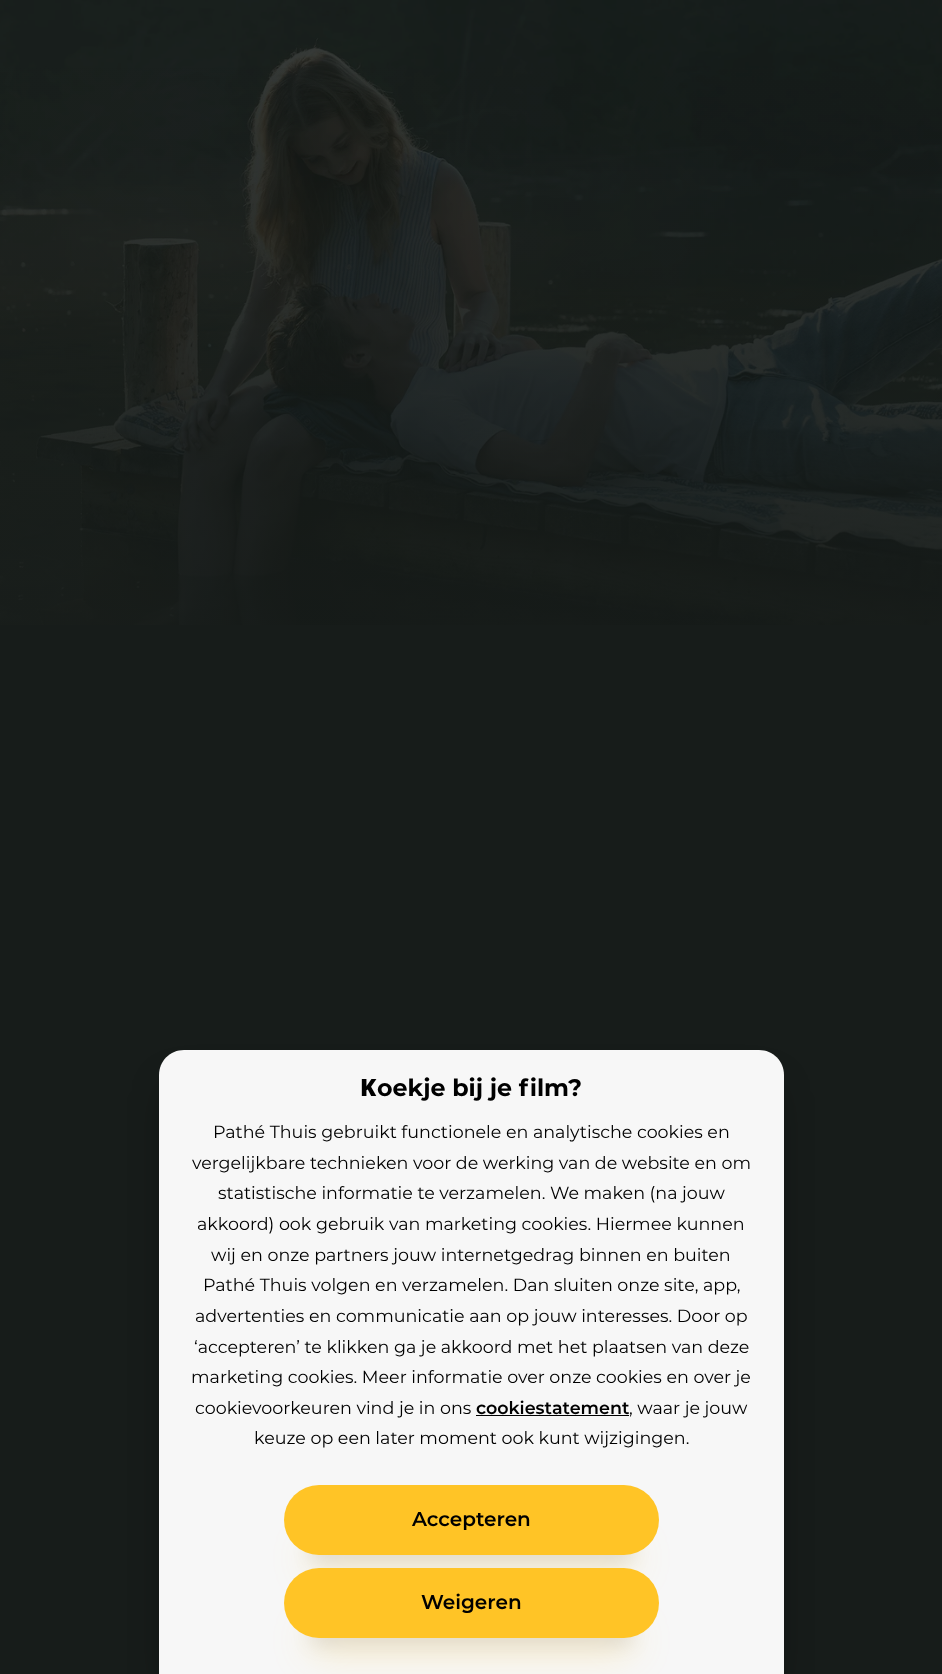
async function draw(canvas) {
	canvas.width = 942;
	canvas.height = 1674;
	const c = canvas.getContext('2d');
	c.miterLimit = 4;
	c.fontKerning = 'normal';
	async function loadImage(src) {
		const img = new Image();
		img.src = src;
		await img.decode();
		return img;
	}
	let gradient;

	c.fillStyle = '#171c1a';
	c.fillRect(0, 0, 942, 1674);
	c.drawImage(await loadImage('img1.png'), 0, 0, 942, 625);
	gradient = c.createLinearGradient(471, 0, 471, 635);
	gradient.addColorStop(0, '#171c1a00');
	gradient.addColorStop(1, '#171c1abf');
	c.fillStyle = gradient;
	c.fillRect(0, 68, 942, 557);
	c.fillStyle = '#00000080';
	c.filter = 'blur(19px)';
	c.beginPath();
	c.roundRect(171, 1088, 600, 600, 13);
	c.fill();
	c.filter = 'none';
	c.fillStyle = '#f7f7f7';
	c.beginPath();
	c.moveTo(184, 1050);
	c.lineTo(759, 1050);
	c.bezierCurveTo(773, 1050, 784, 1061, 784, 1075);
	c.lineTo(784, 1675);
	c.lineTo(159, 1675);
	c.lineTo(159, 1075);
	c.bezierCurveTo(159, 1061, 170, 1050, 184, 1050);
	c.closePath();
	c.fill();
	c.font = '900 23.75px Noto Sans';
	c.fillStyle = '#000';
	c.fillText('K', 360, 1096);
	c.font = 'bold 23.75px Montserrat';
	c.fillText('oekje bij je film?', 377, 1096);
	c.font = '17.5px Montserrat';
	for (const [text, x, y] of [
		['Pathé Thuis gebruikt functionele en analytische cookies en', 213, 1138],
		['vergelijkbare technieken voor de werking van de website en om', 192, 1169],
		['statistische informatie te verzamelen. We maken (na jouw', 218, 1199],
		['akkoord) ook gebruik van marketing cookies. Hiermee kunnen', 197, 1230],
		['wij en onze partners jouw internetgedrag binnen en buiten', 211, 1261],
		['Pathé Thuis volgen en verzamelen. Dan sluiten onze site, app,', 203, 1291],
		['advertenties en communicatie aan op jouw interesses. Door op', 195, 1322],
		['‘accepteren’ te klikken ga je akkoord met het plaatsen van deze', 194, 1353],
		['marketing cookies. Meer informatie over onze cookies en over je', 191, 1383],
		['cookievoorkeuren vind je in ons', 195, 1414],
	]) {
		c.fillText(text, x, y);
	}
	c.font = '600 17.5px Montserrat';
	c.fillText('cookiestatement', 476, 1414);
	c.fillRect(476, 1415, 153, 1);
	c.font = '17.5px Montserrat';
	c.fillText(', waar je jouw', 629, 1414);
	c.fillText('keuze op een later moment ook kunt wijzigingen.', 254, 1444);
	c.fillStyle = '#ffc4264d';
	c.filter = 'blur(19px)';
	c.beginPath();
	c.roundRect(309, 1548, 325, 20, 10);
	c.fill();
	c.filter = 'none';
	c.fillStyle = '#0000001a';
	c.filter = 'blur(9.5px)';
	c.beginPath();
	c.roundRect(309, 1541, 325, 20, 10);
	c.fill();
	c.filter = 'none';
	c.fillStyle = '#ffc426';
	c.beginPath();
	c.roundRect(284, 1485, 375, 70, 35);
	c.fill();
	c.font = '600 20px Montserrat';
	c.fillStyle = '#000';
	c.fillText('Accepteren', 412, 1526);
	c.fillStyle = '#ffc4264d';
	c.filter = 'blur(19px)';
	c.beginPath();
	c.roundRect(309, 1630, 325, 20, 10);
	c.fill();
	c.filter = 'none';
	c.fillStyle = '#0000001a';
	c.filter = 'blur(9.5px)';
	c.beginPath();
	c.roundRect(309, 1624, 325, 20, 10);
	c.fill();
	c.filter = 'none';
	c.fillStyle = '#ffc426';
	c.beginPath();
	c.roundRect(284, 1568, 375, 70, 35);
	c.fill();
	c.fillStyle = '#000';
	c.fillText('Weigeren', 421, 1609);
}

draw(document.querySelector('canvas'));
